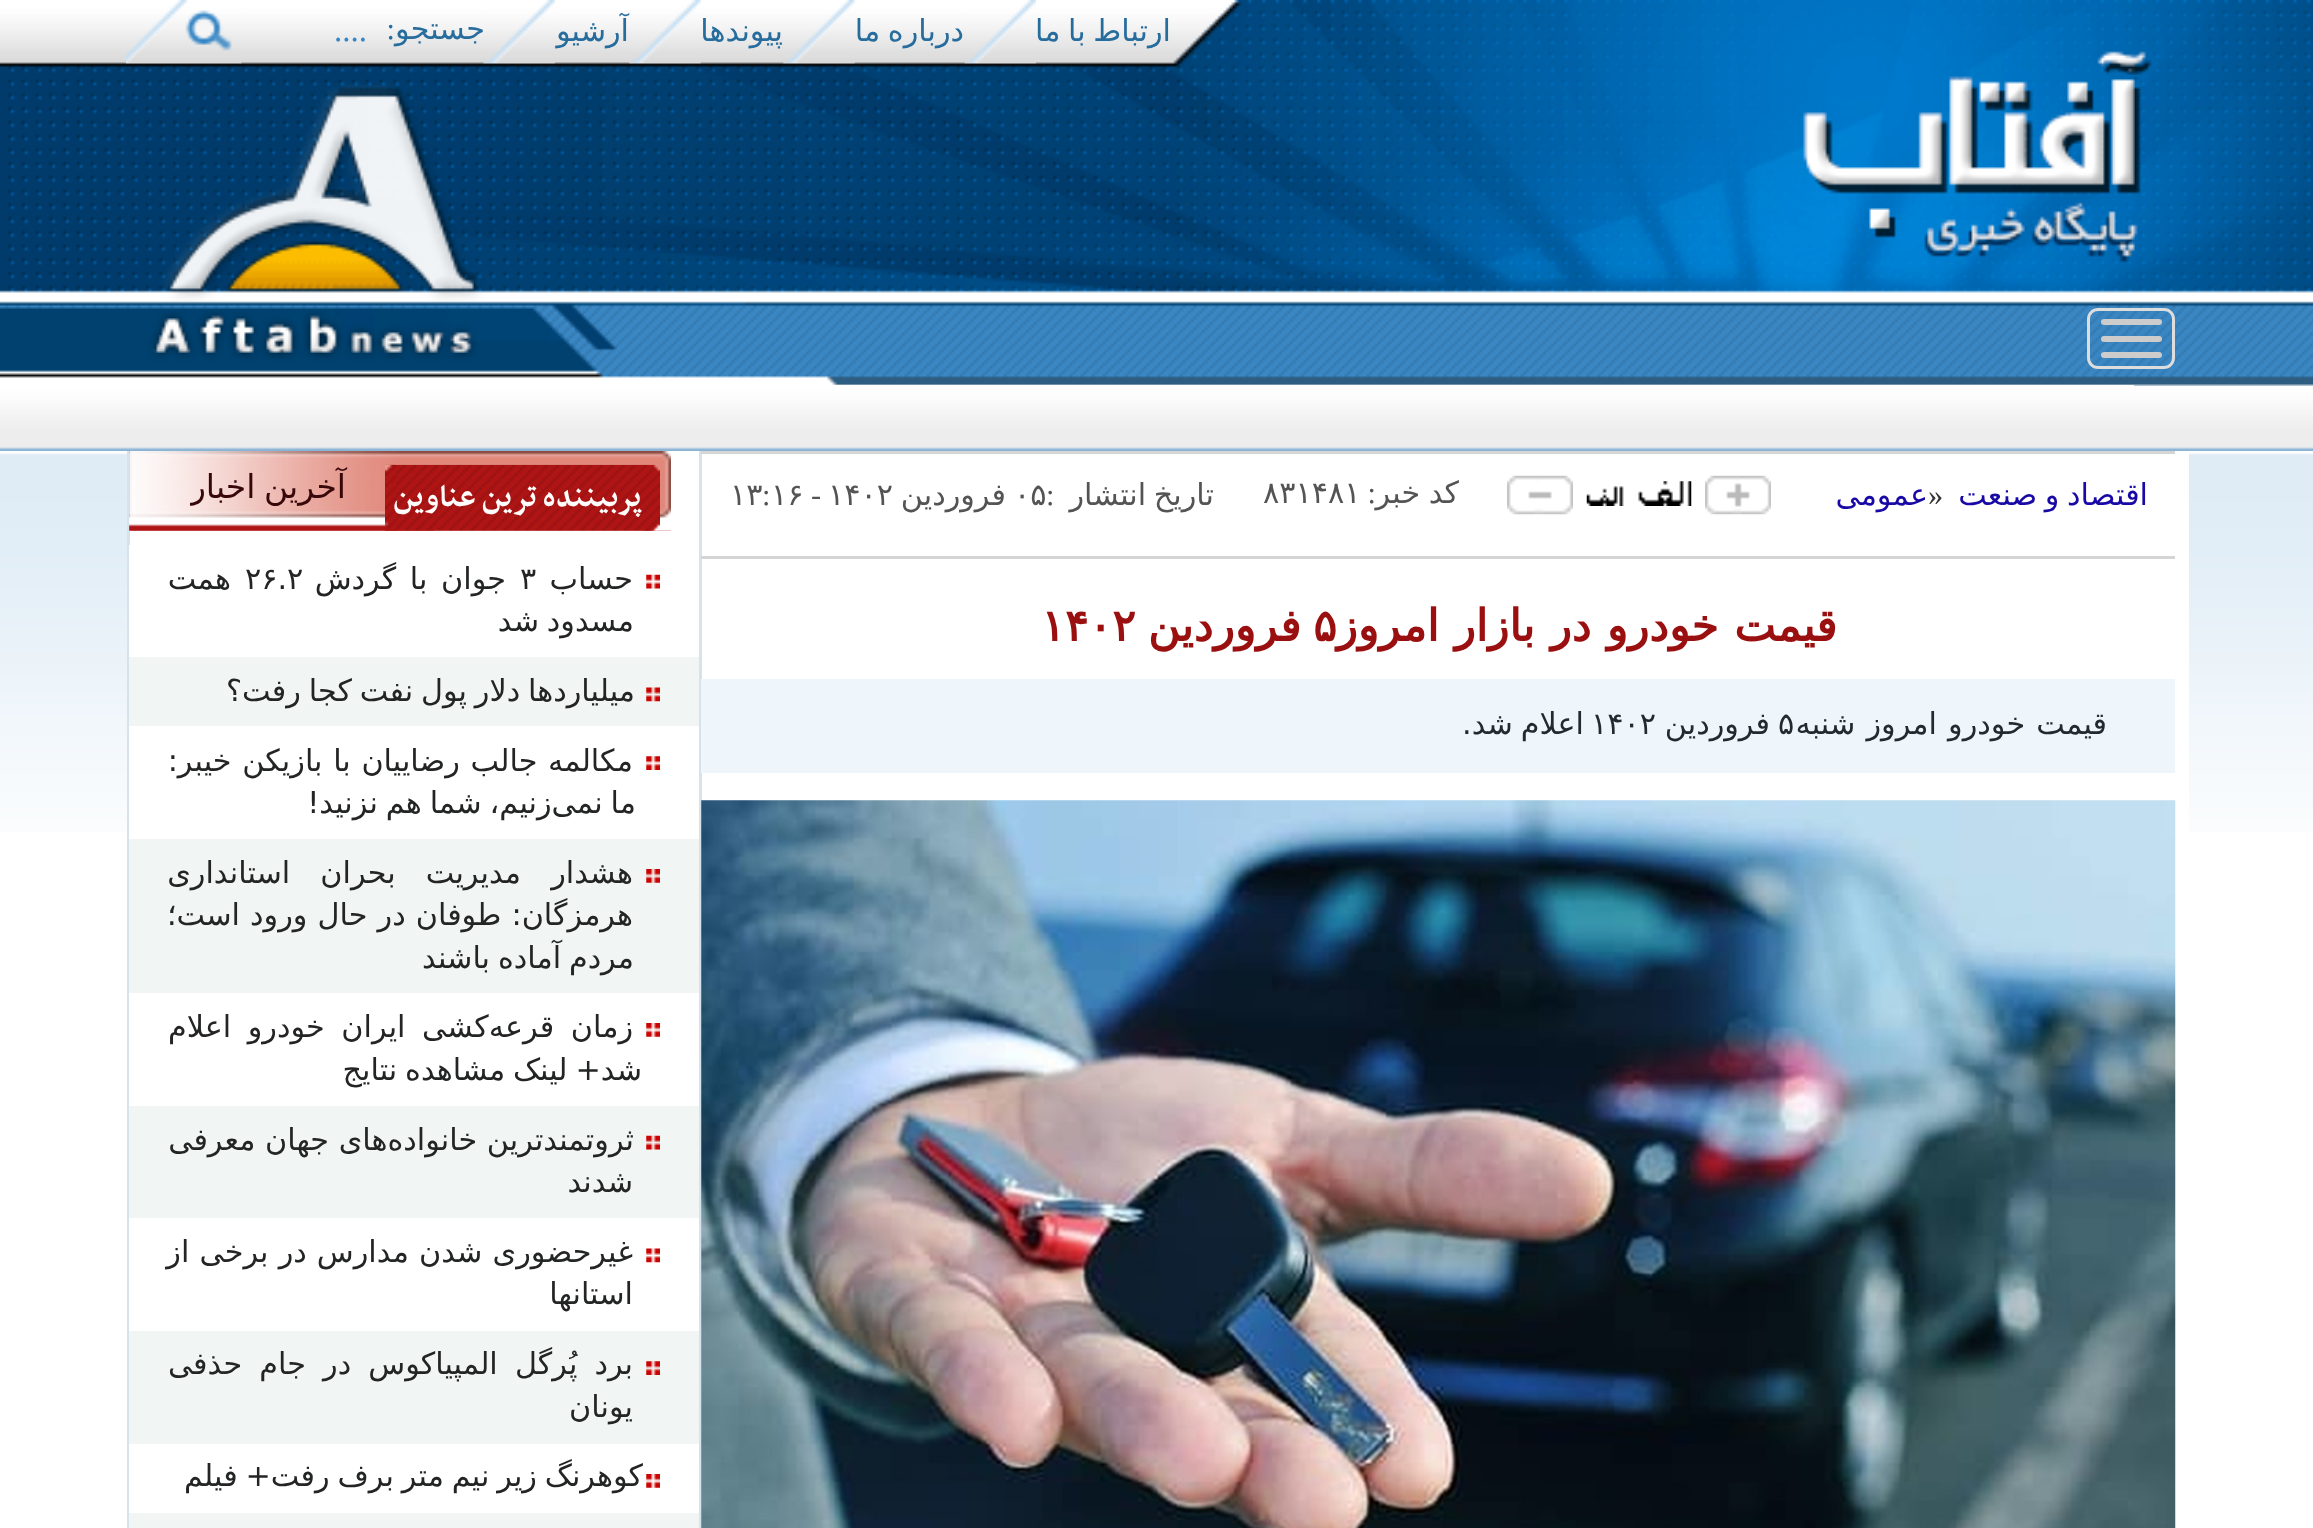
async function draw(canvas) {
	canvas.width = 2313;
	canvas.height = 1528;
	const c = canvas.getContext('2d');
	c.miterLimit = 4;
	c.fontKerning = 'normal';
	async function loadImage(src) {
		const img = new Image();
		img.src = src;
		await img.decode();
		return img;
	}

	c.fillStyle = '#fff';
	c.fillRect(0, 0, 2313, 1528);
	c.drawImage(await loadImage('img1.png'), 0, 0, 2313, 451);
	c.save();
	c.beginPath();
	c.rect(127, 0, 1045, 63);
	c.clip();
	c.wordSpacing = '-2px';
	c.direction = 'rtl';
	c.font = '30.25px DejaVu Sans';
	c.fillStyle = '#266c9d';
	c.fillText('ارتباط با ما', 1171, 41);
	c.restore();
	c.wordSpacing = '-2px';
	c.direction = 'rtl';
	c.font = '30.25px DejaVu Sans';
	c.fillStyle = '#266c9d';
	c.fillText('درباره ما', 964, 41);
	c.drawImage(await loadImage('img2.png'), 964, 0, 72, 64);
	c.drawImage(await loadImage('img3.png'), 783, 0, 73, 64);
	c.wordSpacing = '0px';
	c.fillText('پیوندها', 783, 41);
	c.fillText('آرشیو', 629, 41);
	c.drawImage(await loadImage('img4.png'), 629, 0, 73, 64);
	c.drawImage(await loadImage('img5.png'), 483, 0, 73, 64);
	c.fillText('جستجو', 485, 39);
	c.font = '30.25px Liberation Serif';
	c.fillText(':', 395, 39);
	c.direction = 'ltr';
	c.font = '33px Liberation Serif';
	c.fillStyle = '#3586c7';
	c.fillText('....', 334, 41);
	c.drawImage(await loadImage('img6.png'), 126, 0, 116, 64);
	c.beginPath();
	c.roundRect(2088.5, 309.5, 85, 58, 9.5);
	c.strokeStyle = '#ddd';
	c.lineWidth = 3;
	c.stroke();
	c.fillStyle = '#ccc';
	c.beginPath();
	c.roundRect(2101, 319, 61, 6, 3);
	c.fill();
	c.beginPath();
	c.roundRect(2101, 336, 61, 6, 3);
	c.fill();
	c.beginPath();
	c.roundRect(2101, 352, 61, 6, 3);
	c.fill();
	c.fillStyle = '#fff';
	c.fillRect(832, 385, 1302, 1);
	c.drawImage(await loadImage('img7.png'), 1471, 397, 590, 37);
	c.drawImage(await loadImage('img8.png'), 0, 453, 2313, 379);
	for (const [x, y, w, h, color] of [
		[130, 453, 2059, 379, '#fff'],
		[699, 451, 3, 1077, '#d6e3ec'],
		[701, 451, 1474, 3, '#d5d5d5'],
		[701, 556, 1474, 3, '#d5d5d5'],
	]) {
		c.fillStyle = color;
		c.fillRect(x, y, w, h);
	}
	c.wordSpacing = '-2px';
	c.direction = 'rtl';
	c.font = '30.25px DejaVu Sans';
	c.fillStyle = '#1809a6';
	c.fillText('اقتصاد و صنعت', 2148, 505);
	c.wordSpacing = '0px';
	c.direction = 'ltr';
	c.font = '30.25px Liberation Serif';
	c.fillStyle = '#333';
	c.fillText('»', 1928, 505);
	c.direction = 'rtl';
	c.font = '30.25px DejaVu Sans';
	c.fillStyle = '#1809a6';
	c.fillText('عمومی', 1928, 505);
	c.drawImage(await loadImage('img9.png'), 1705, 475, 66, 40);
	c.drawImage(await loadImage('img10.png'), 1586, 481, 106, 25);
	c.drawImage(await loadImage('img11.png'), 1507, 475, 66, 40);
	c.save();
	c.beginPath();
	c.rect(1262, 476, 198, 38);
	c.clip();
	c.wordSpacing = '-1px';
	c.fillStyle = '#545454';
	c.fillText('کد خبر', 1459, 503);
	c.restore();
	c.font = '30.25px Liberation Serif';
	c.fillStyle = '#545454';
	c.fillText(':', 1376, 503);
	c.direction = 'ltr';
	c.font = '30.25px DejaVu Sans';
	c.fillText('۸۳۱۴۸۱', 1263, 503);
	c.wordSpacing = '-2px';
	c.direction = 'rtl';
	c.fillText('تاریخ انتشار', 1214, 505);
	c.wordSpacing = '0px';
	c.direction = 'ltr';
	c.font = '30.25px Liberation Serif';
	c.fillText(':', 1046, 505);
	c.font = '30.25px DejaVu Sans';
	c.fillText('۰۵', 1014, 505);
	c.direction = 'rtl';
	c.fillText('فروردين', 1006, 505);
	c.direction = 'ltr';
	c.fillText('۱۴۰۲', 828, 505);
	c.font = '30.25px Liberation Serif';
	c.fillText('-', 811, 505);
	c.font = '30.25px DejaVu Sans';
	c.fillText('۱۶', 771, 505);
	c.font = '30.25px Liberation Serif';
	c.fillText(':', 762, 505);
	c.font = '30.25px DejaVu Sans';
	c.fillText('۱۳', 730, 505);
	c.font = 'bold 44px DejaVu Sans';
	c.fillStyle = '#9a1010';
	c.fillText('۵', 1313, 641);
	c.wordSpacing = '1.5px';
	c.direction = 'rtl';
	c.fillText('قیمت خودرو در بازار امروز', 1837, 641);
	c.wordSpacing = '0px';
	c.fillText('فروردین', 1301, 641);
	c.direction = 'ltr';
	c.fillText('۱۴۰۲', 1041, 641);
	c.fillStyle = '#eef5fb';
	c.fillRect(701, 679, 1474, 94);
	c.wordSpacing = '1.5px';
	c.direction = 'rtl';
	c.font = '30.25px DejaVu Sans';
	c.fillStyle = '#24292d';
	c.fillText('قیمت خودرو امروز شنبه', 2107, 734);
	c.wordSpacing = '0px';
	c.direction = 'ltr';
	c.fillText('۵', 1778, 734);
	c.direction = 'rtl';
	c.fillText('فروردین', 1770, 734);
	c.direction = 'ltr';
	c.fillText('۱۴۰۲', 1591, 734);
	c.wordSpacing = '-1.75px';
	c.direction = 'rtl';
	c.fillText('اعلام شد.', 1584, 734);
	c.drawImage(await loadImage('img12.png'), 701, 800, 1475, 728);
	c.fillStyle = '#d6e3ec';
	c.fillRect(127, 451, 3, 1077);
	c.drawImage(await loadImage('img13.png'), 129, 451, 542, 80);
	c.drawImage(await loadImage('img14.png'), 385, 464, 275, 67);
	c.wordSpacing = '0px';
	c.font = 'bold 35.75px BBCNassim';
	c.fillStyle = '#fffefc';
	c.fillText('پربیننده ترین عناوین', 642, 506);
	c.save();
	c.beginPath();
	c.rect(190, 465, 173, 44);
	c.clip();
	c.wordSpacing = '-2px';
	c.font = '33px DejaVu Sans';
	c.fillStyle = '#38070a';
	c.fillText('آخرین اخبار', 346, 498);
	c.restore();
	c.fillStyle = '#fff';
	c.fillRect(129, 545, 1, 112);
	c.drawImage(await loadImage('img15.png'), 646, 574, 14, 15);
	c.font = '30.25px DejaVu Sans';
	c.fillStyle = '#232524';
	c.fillText('حساب', 633, 589);
	c.direction = 'ltr';
	c.fillText('۳', 520, 589);
	c.wordSpacing = '4px';
	c.direction = 'rtl';
	c.fillText('جوان با گردش', 506, 589);
	c.wordSpacing = '0px';
	c.direction = 'ltr';
	c.fillText('۲۶.۲', 245, 589);
	c.direction = 'rtl';
	c.fillText('همت', 231, 589);
	c.wordSpacing = '-1.75px';
	c.fillText('مسدود شد', 634, 631);
	c.fillStyle = '#f1f5f4';
	c.fillRect(129, 657, 570, 69);
	c.drawImage(await loadImage('img16.png'), 646, 687, 14, 15);
	c.fillStyle = '#232524';
	c.fillText('میلیاردها دلار پول نفت کجا رفت؟', 635, 701);
	c.fillStyle = '#fff';
	c.fillRect(129, 726, 1, 113);
	c.drawImage(await loadImage('img17.png'), 646, 756, 14, 14);
	c.wordSpacing = '1px';
	c.fillStyle = '#232524';
	c.fillText('مکالمه جالب رضاییان با بازیکن خیبر:', 633, 771);
	c.wordSpacing = '-1.75px';
	c.fillText('ما نمی‌زنیم، شما هم نزنید!', 636, 813);
	c.fillStyle = '#f1f5f4';
	c.fillRect(129, 839, 570, 154);
	c.drawImage(await loadImage('img18.png'), 646, 869, 14, 14);
	c.wordSpacing = '20.5px';
	c.fillStyle = '#232524';
	c.fillText('هشدار مدیریت بحران استانداری', 633, 883);
	c.wordSpacing = '0.5px';
	c.fillText('هرمزگان: طوفان در حال ورود است؛', 633, 925);
	c.wordSpacing = '-1.75px';
	c.fillText('مردم آماده باشند', 634, 968);
	c.fillStyle = '#fff';
	c.fillRect(129, 993, 1, 113);
	c.drawImage(await loadImage('img19.png'), 646, 1023, 14, 14);
	c.wordSpacing = '7px';
	c.fillStyle = '#232524';
	c.fillText('زمان قرعه‌کشی ایران خودرو اعلام', 633, 1037);
	c.wordSpacing = '-1.75px';
	c.fillText('شد+ لینک مشاهده نتایج', 642, 1080);
	c.fillStyle = '#f1f5f4';
	c.fillRect(129, 1106, 570, 112);
	c.drawImage(await loadImage('img20.png'), 646, 1135, 14, 15);
	c.wordSpacing = '0px';
	c.fillStyle = '#232524';
	c.fillText('ثروتمندترین خانواده‌های جهان معرفی', 634, 1150);
	c.fillText('شدند', 633, 1192);
	c.fillStyle = '#fff';
	c.fillRect(129, 1218, 1, 113);
	c.drawImage(await loadImage('img21.png'), 646, 1248, 14, 15);
	c.wordSpacing = '0.5px';
	c.fillStyle = '#232524';
	c.fillText('غیرحضوری شدن مدارس در برخی از', 633, 1262);
	c.wordSpacing = '0px';
	c.fillText('استانها', 633, 1304);
	c.fillStyle = '#f1f5f4';
	c.fillRect(129, 1331, 570, 113);
	c.drawImage(await loadImage('img22.png'), 646, 1361, 14, 14);
	c.wordSpacing = '7.5px';
	c.fillStyle = '#232524';
	c.fillText('برد پُرگل المپیاکوس در جام حذفی', 633, 1374);
	c.wordSpacing = '0px';
	c.fillText('یونان', 633, 1417);
	c.fillStyle = '#fff';
	c.fillRect(129, 1444, 1, 69);
	c.drawImage(await loadImage('img19.png'), 646, 1474, 14, 14);
	c.wordSpacing = '-1.75px';
	c.fillStyle = '#232524';
	c.fillText('کوهرنگ زیر نیم متر برف رفت+ فیلم', 643, 1486);
	c.fillStyle = '#f1f5f4';
	c.fillRect(129, 1513, 570, 15);
}

draw(document.querySelector('canvas'));
